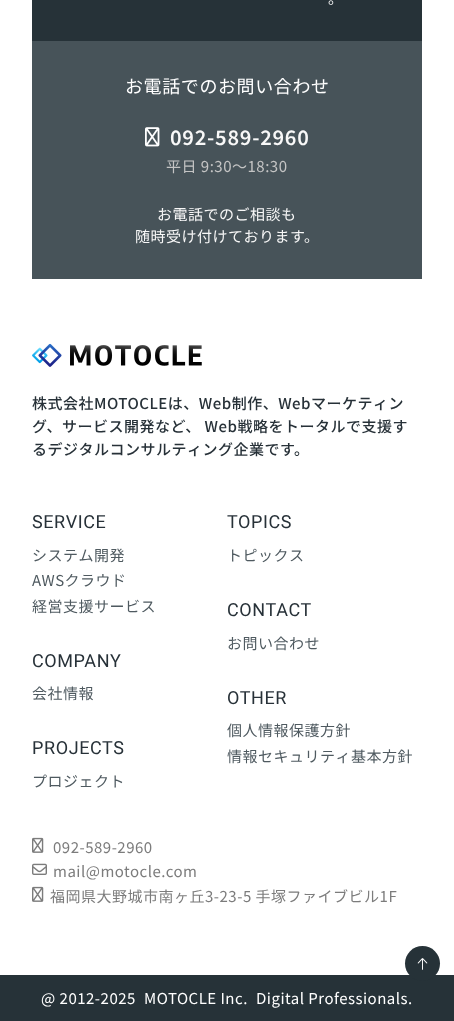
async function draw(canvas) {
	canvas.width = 454;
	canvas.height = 1021;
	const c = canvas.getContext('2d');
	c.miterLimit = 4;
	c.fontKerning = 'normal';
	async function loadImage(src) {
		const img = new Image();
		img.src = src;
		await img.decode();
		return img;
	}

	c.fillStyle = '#fff';
	c.fillRect(0, 0, 454, 1021);
	c.fillStyle = '#263238';
	c.fillRect(32, 0, 390, 41);
	c.letterSpacing = '0.5px';
	c.font = '15px Noto Sans JP';
	c.fillStyle = '#f8f8f8';
	c.fillText('。', 328, 4);
	c.fillStyle = '#475359';
	c.fillRect(32, 41, 390, 238);
	c.letterSpacing = '0.6px';
	c.font = '18px Noto Sans JP';
	c.fillStyle = '#fff';
	c.fillText('お電話でのお問い合わせ', 125, 93);
	c.drawImage(await loadImage('img1.png'), 145, 127, 15, 20);
	c.letterSpacing = '0.75px';
	c.font = '600 20px Noto Sans JP';
	c.fillStyle = '#f8f8f8';
	c.fillText('092-589-2960', 170, 145);
	c.letterSpacing = '0.5px';
	c.font = '15px Noto Sans JP';
	c.fillStyle = '#c4c4c4';
	c.fillText('平日 9:30～18:30', 166, 172);
	c.fillStyle = '#f8f8f8';
	c.fillText('お電話でのご相談も', 157, 220);
	c.fillText('随時受け付けております。', 135, 242);
	c.drawImage(await loadImage('img2.png'), 32, 343, 170, 24);
	c.font = '500 15px Noto Sans JP';
	c.fillStyle = '#273138';
	for (const [text, x, y] of [
		['株式会社MOTOCLEは、Web制作、Webマーケティン', 32, 409],
		['グ、サービス開発など、 Web戦略をトータルで支援す', 32, 432],
		['るデジタルコンサルティング企業です。', 32, 455],
	]) {
		c.fillText(text, x, y);
	}
	c.letterSpacing = '0.6px';
	c.font = '18px Roboto';
	c.fillText('SERVICE', 32, 528);
	c.letterSpacing = '0.5px';
	c.font = '15px Noto Sans JP';
	c.fillStyle = '#4f5a60';
	for (const [text, x, y] of [
		['システム開発', 32, 561],
		['AWSクラウド', 32, 586],
		['経営支援サービス', 32, 612],
	]) {
		c.fillText(text, x, y);
	}
	c.letterSpacing = '0.6px';
	c.font = '18px Roboto';
	c.fillStyle = '#273138';
	c.fillText('COMPANY', 32, 667);
	c.letterSpacing = '0.5px';
	c.font = '15px Noto Sans JP';
	c.fillStyle = '#4f5a60';
	c.fillText('会社情報', 32, 699);
	c.letterSpacing = '0.6px';
	c.font = '18px Roboto';
	c.fillStyle = '#273138';
	c.fillText('PROJECTS', 32, 754);
	c.letterSpacing = '0.5px';
	c.font = '15px Noto Sans JP';
	c.fillStyle = '#4f5a60';
	c.fillText('プロジェクト', 32, 787);
	c.letterSpacing = '0.6px';
	c.font = '18px Roboto';
	c.fillStyle = '#273138';
	c.fillText('TOPICS', 227, 528);
	c.letterSpacing = '0.5px';
	c.font = '15px Noto Sans JP';
	c.fillStyle = '#4f5a60';
	c.fillText('トピックス', 227, 561);
	c.letterSpacing = '0.6px';
	c.font = '18px Roboto';
	c.fillStyle = '#273138';
	c.fillText('CONTACT', 227, 616);
	c.letterSpacing = '0.5px';
	c.font = '15px Noto Sans JP';
	c.fillStyle = '#4f5a60';
	c.fillText('お問い合わせ', 227, 649);
	c.letterSpacing = '0.6px';
	c.font = '18px Roboto';
	c.fillStyle = '#273138';
	c.fillText('OTHER', 227, 704);
	c.letterSpacing = '0.5px';
	c.font = '15px Noto Sans JP';
	c.fillStyle = '#4f5a60';
	c.fillText('個人情報保護方針', 227, 736);
	c.fillText('情報セキュリティ基本方針', 227, 762);
	c.drawImage(await loadImage('img3.png'), 32, 837, 12, 16);
	c.fillStyle = '#7c7c7c';
	c.fillText('092-589-2960', 53, 853);
	c.drawImage(await loadImage('img4.png'), 32, 863, 15, 12);
	c.fillText('mail@motocle.com', 53, 877);
	c.drawImage(await loadImage('img3.png'), 32, 886, 12, 16);
	c.fillText('福岡県大野城市南ヶ丘3-23-5 手塚ファイブビル1F', 50, 902);
	c.fillStyle = '#263238';
	c.fillRect(0, 975, 454, 46);
	c.fillStyle = '#fff';
	for (const [text, x, y] of [
		['@ 2012-2025', 41, 1004],
		['MOTOCLE Inc.', 144, 1004],
		['Digital Professionals.', 256, 1004],
	]) {
		c.fillText(text, x, y);
	}
	c.fillStyle = '#263238';
	c.beginPath();
	c.arc(422.5, 963.5, 17.5, 0, 2 * Math.PI);
	c.fill();
	c.drawImage(await loadImage('img5.png'), 417, 958, 11, 12);
}

draw(document.querySelector('canvas'));
